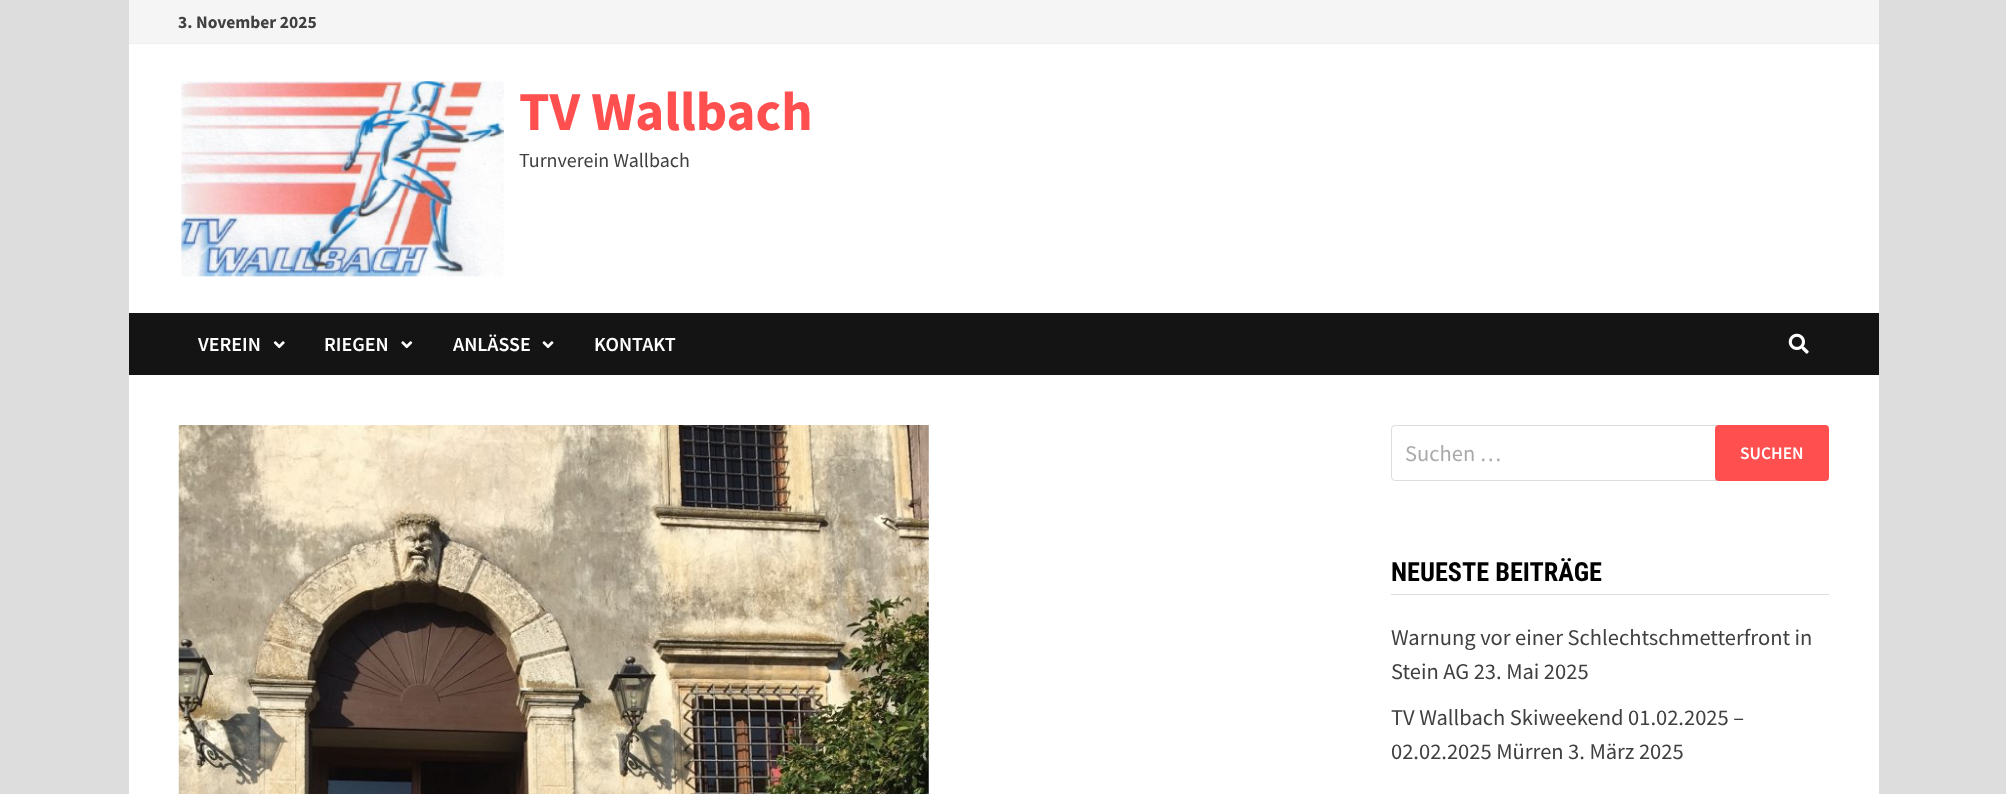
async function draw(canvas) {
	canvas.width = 2006;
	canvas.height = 794;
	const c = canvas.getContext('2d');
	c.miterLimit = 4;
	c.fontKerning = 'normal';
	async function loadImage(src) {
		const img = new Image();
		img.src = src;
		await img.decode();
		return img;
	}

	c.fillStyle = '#ddd';
	c.fillRect(0, 0, 2006, 794);
	for (const [x, y, w, h, color] of [
		[129, 44, 1750, 750, '#fff'],
		[129, 0, 1750, 43, '#f5f5f5'],
		[129, 43, 1750, 1, '#eee'],
	]) {
		c.fillStyle = color;
		c.fillRect(x, y, w, h);
	}
	c.font = 'bold 17.5px Source Sans Pro';
	c.fillStyle = '#404040';
	c.fillText('3. November 2025', 178, 28);
	c.drawImage(await loadImage('img1.png'), 181, 81, 323, 196);
	c.font = 'bold 55px Source Sans Pro';
	c.fillStyle = '#ff4f4f';
	c.fillText('TV Wallbach', 519, 130);
	c.font = '20px Source Sans Pro';
	c.fillStyle = '#404040';
	c.fillText('Turnverein Wallbach', 519, 167);
	c.fillStyle = '#141414';
	c.fillRect(129, 313, 1750, 62);
	c.font = '600 20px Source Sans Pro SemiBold';
	c.fillStyle = '#fff';
	c.fillText('VEREIN', 198, 351);
	c.drawImage(await loadImage('img2.png'), 273, 341, 12, 8);
	c.fillText('RIEGEN', 324, 351);
	c.drawImage(await loadImage('img3.png'), 401, 341, 12, 8);
	c.fillText('ANLÄSSE', 453, 351);
	c.drawImage(await loadImage('img4.png'), 542, 341, 12, 8);
	c.fillText('KONTAKT', 594, 351);
	c.drawImage(await loadImage('img5.png'), 1788, 333, 21, 21);
	c.drawImage(await loadImage('img6.png'), 178, 425, 751, 369);
	c.beginPath();
	c.roundRect(1391.5, 425.5, 437, 55, 3.5);
	c.strokeStyle = '#ddd';
	c.stroke();
	c.font = '22.5px Source Sans Pro';
	c.fillStyle = '#aaa';
	c.fillText('Suchen …', 1405, 461);
	c.fillStyle = '#ff4f4f';
	c.beginPath();
	c.roundRect(1715, 425, 114, 56, 4);
	c.fill();
	c.font = '600 17.5px Source Sans Pro SemiBold';
	c.fillStyle = '#fff';
	c.fillText('SUCHEN', 1740, 459);
	c.fillStyle = '#ddd';
	c.fillRect(1391, 594, 438, 1);
	c.font = 'bold 26.25px Roboto Condensed';
	c.fillStyle = '#000';
	c.fillText('NEUESTE BEITRÄGE', 1391, 581);
	c.font = '22.5px Source Sans Pro';
	c.fillStyle = '#404040';
	for (const [text, x, y] of [
		['Warnung vor einer Schlechtschmetterfront in', 1391, 645],
		['Stein AG 23. Mai 2025', 1391, 679],
		['TV Wallbach Skiweekend 01.02.2025 –', 1391, 725],
		['02.02.2025 Mürren 3. März 2025', 1391, 759],
	]) {
		c.fillText(text, x, y);
	}
}

draw(document.querySelector('canvas'));
